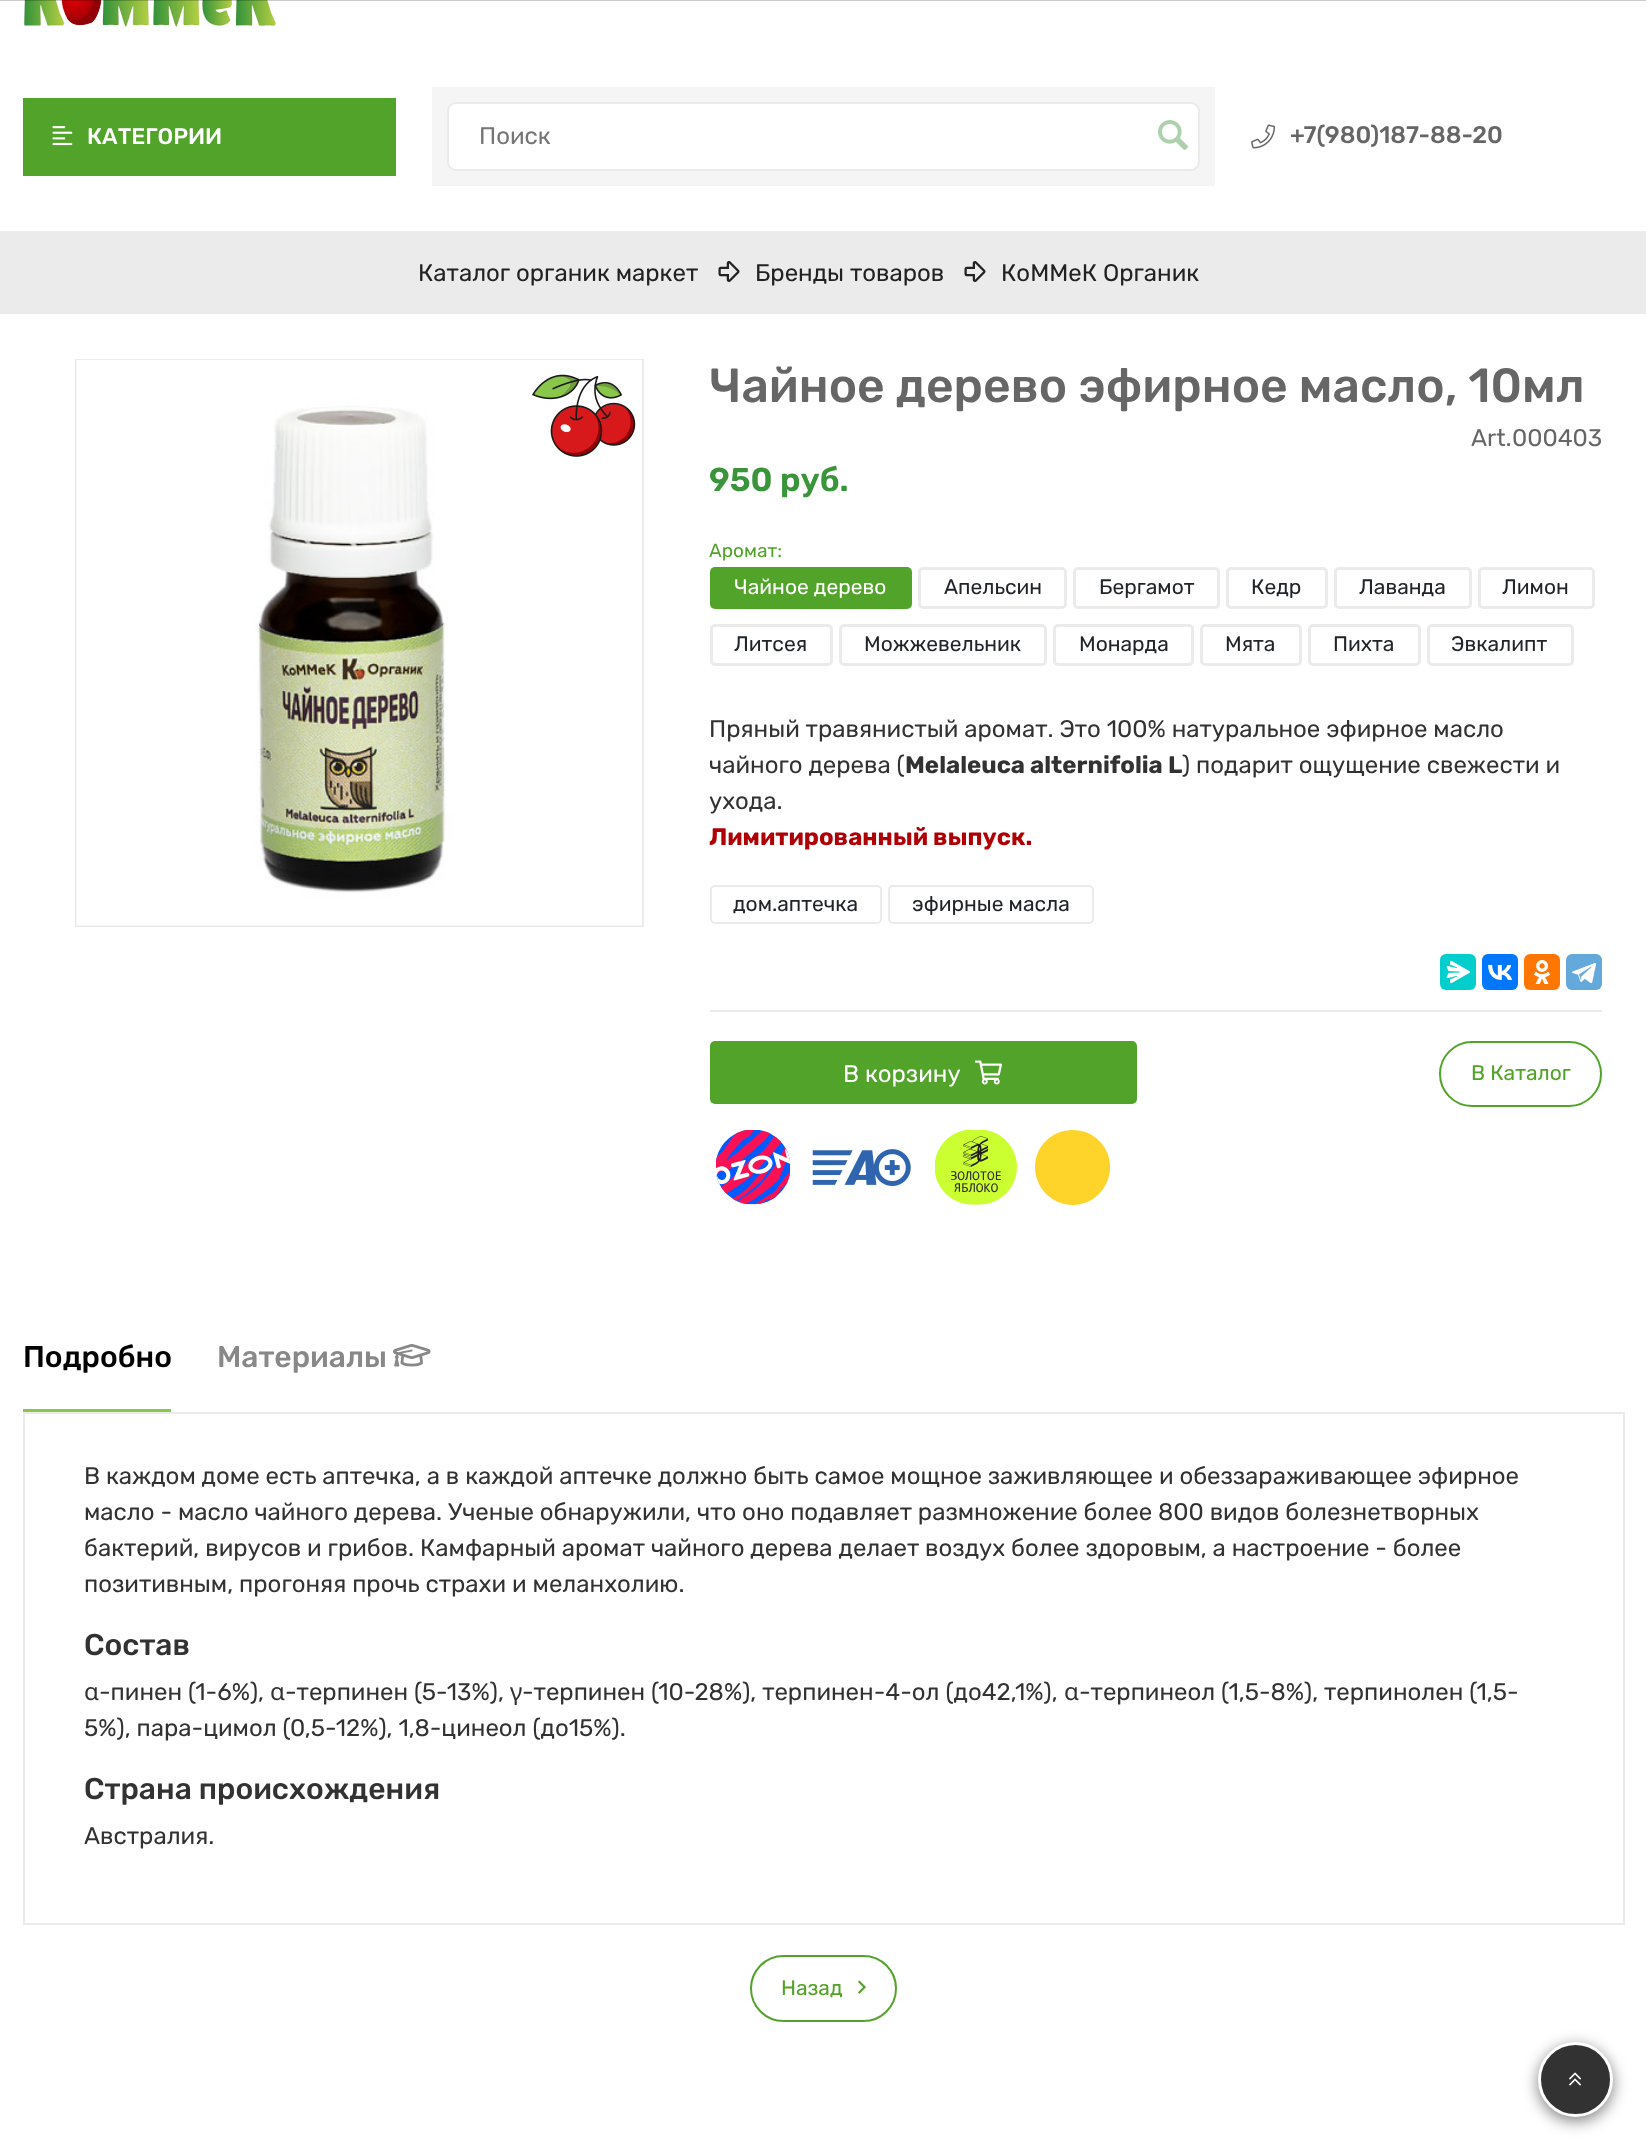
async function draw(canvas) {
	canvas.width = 1646;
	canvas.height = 2150;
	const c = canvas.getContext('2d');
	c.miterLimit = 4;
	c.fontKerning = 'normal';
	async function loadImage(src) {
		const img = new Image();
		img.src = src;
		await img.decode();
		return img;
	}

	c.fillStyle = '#fff';
	c.fillRect(0, 0, 1646, 2150);
	c.drawImage(await loadImage('img1.png'), 24, 0, 252, 27);
	c.fillStyle = '#00000033';
	c.fillRect(0, 0, 1646, 1);
	c.fillStyle = '#52a329';
	c.fillRect(23, 98, 373, 78);
	c.drawImage(await loadImage('img2.png'), 52, 126, 21, 20);
	c.font = '300 22.5px Rubik';
	c.fillStyle = '#fff';
	c.fillText('КАТЕГОРИИ', 87, 144);
	c.fillStyle = '#f5f5f5';
	c.fillRect(432, 87, 783, 99);
	c.fillStyle = '#fff';
	c.beginPath();
	c.roundRect(448, 103, 751, 67, 8);
	c.fill();
	c.strokeStyle = '#ebebeb';
	c.lineWidth = 2;
	c.stroke();
	c.font = '300 24px "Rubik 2"';
	c.fillStyle = '#757575';
	c.fillText('Поиск', 479, 144);
	c.drawImage(await loadImage('img3.png'), 1158, 120, 30, 30);
	c.drawImage(await loadImage('img4.png'), 1251, 124, 24, 25);
	c.font = '300 24px Rubik';
	c.fillStyle = '#666';
	c.fillText('+7(980)187-88-20', 1290, 143);
	c.fillStyle = '#ebebeb';
	c.fillRect(0, 231, 1646, 83);
	c.font = '300 24px "Rubik 2"';
	c.fillStyle = '#222';
	c.fillText('Каталог органик маркет', 418, 281);
	c.drawImage(await loadImage('img5.png'), 718, 261, 22, 21);
	c.fillText('Бренды товаров', 755, 281);
	c.drawImage(await loadImage('img5.png'), 964, 261, 22, 21);
	c.fillText('КоММеК Органик', 1001, 281);
	c.strokeRect(76, 360, 567, 566);
	c.drawImage(await loadImage('img6.png'), 76, 360, 566, 566);
	c.drawImage(await loadImage('img7.png'), 532, 374, 104, 83);
	c.font = '300 48px Rubik';
	c.fillStyle = '#666';
	c.fillText('Чайное дерево эфирное масло, 10мл', 709, 402);
	c.font = '300 24px "Rubik 2"';
	c.fillText('Art.', 1471, 446);
	c.fillText('000403', 1512, 446);
	c.font = '600 33px Rubik';
	c.fillStyle = '#3a953a';
	c.fillText('950 руб.', 709, 491);
	c.font = '300 19px "Rubik 2"';
	c.fillStyle = '#52a329';
	c.fillText('Аромат:', 709, 557);
	c.beginPath();
	c.roundRect(710, 567, 202, 42, 5);
	c.fill();
	c.font = '300 21px "Rubik 2"';
	c.fillStyle = '#fff';
	c.fillText('Чайное дерево', 734, 594);
	c.beginPath();
	c.roundRect(919.5, 568.5, 146, 39, 3.5);
	c.lineWidth = 3;
	c.stroke();
	c.fillStyle = '#212529';
	c.fillText('Апельсин', 944, 594);
	c.beginPath();
	c.roundRect(1074.5, 568.5, 144, 39, 3.5);
	c.stroke();
	c.fillText('Бергамот', 1099, 594);
	c.beginPath();
	c.roundRect(1227.5, 568.5, 99, 39, 3.5);
	c.stroke();
	c.fillText('Кедр', 1251, 594);
	c.beginPath();
	c.roundRect(1335.5, 568.5, 135, 39, 3.5);
	c.stroke();
	c.fillText('Лаванда', 1359, 594);
	c.beginPath();
	c.roundRect(1479.5, 568.5, 114, 39, 3.5);
	c.stroke();
	c.fillText('Лимон', 1502, 594);
	c.beginPath();
	c.roundRect(711.5, 625.5, 120, 39, 3.5);
	c.stroke();
	c.fillText('Литсея', 734, 651);
	c.beginPath();
	c.roundRect(840.5, 625.5, 205, 39, 3.5);
	c.stroke();
	c.fillText('Можжевельник', 864, 651);
	c.beginPath();
	c.roundRect(1054.5, 625.5, 138, 39, 3.5);
	c.stroke();
	c.fillText('Монарда', 1079, 651);
	c.beginPath();
	c.roundRect(1201.5, 625.5, 99, 39, 3.5);
	c.stroke();
	c.fillText('Мята', 1225, 651);
	c.beginPath();
	c.roundRect(1309.5, 625.5, 110, 39, 3.5);
	c.stroke();
	c.fillText('Пихта', 1333, 651);
	c.beginPath();
	c.roundRect(1428.5, 625.5, 144, 39, 3.5);
	c.stroke();
	c.fillText('Эвкалипт', 1451, 651);
	c.font = '300 24px "Rubik 2"';
	c.fillStyle = '#323232';
	c.fillText('Пряный травянистый аромат. Это 100% натуральное эфирное масло', 709, 737);
	c.fillText('чайного дерева (', 709, 773);
	c.font = '300 24px "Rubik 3"';
	c.fillText('Melaleuca alternifolia L', 905, 773);
	c.font = '300 24px "Rubik 2"';
	c.fillText(') подарит ощущение свежести и', 1182, 773);
	c.fillText('ухода.', 709, 809);
	c.font = '300 24px "Rubik 3"';
	c.fillStyle = '#b00006';
	c.fillText('Лимитированный выпуск.', 709, 845);
	c.beginPath();
	c.roundRect(711, 886, 170, 37, 4);
	c.lineWidth = 2;
	c.stroke();
	c.font = '300 21px "Rubik 2"';
	c.fillStyle = '#212529';
	c.fillText('дом.аптечка', 733, 911);
	c.beginPath();
	c.roundRect(889, 886, 204, 37, 4);
	c.stroke();
	c.fillText('эфирные масла', 912, 911);
	c.fillStyle = '#03cece';
	c.beginPath();
	c.roundRect(1440, 954, 36, 36, 6);
	c.fill();
	c.drawImage(await loadImage('img8.png'), 1446, 960, 24, 24);
	c.fillStyle = '#07f';
	c.beginPath();
	c.roundRect(1482, 954, 36, 36, 6);
	c.fill();
	c.drawImage(await loadImage('img9.png'), 1488, 964, 24, 16);
	c.fillStyle = '#f70';
	c.beginPath();
	c.roundRect(1524, 954, 36, 36, 6);
	c.fill();
	c.drawImage(await loadImage('img10.png'), 1534, 960, 17, 24);
	c.fillStyle = '#64a9dc';
	c.beginPath();
	c.roundRect(1566, 954, 36, 36, 6);
	c.fill();
	c.drawImage(await loadImage('img11.png'), 1572, 963, 24, 21);
	c.fillStyle = '#ebebeb';
	c.fillRect(710, 1010, 892, 2);
	c.fillStyle = '#52a329';
	c.beginPath();
	c.roundRect(710, 1041, 427, 63, 5);
	c.fill();
	c.font = '300 24px "Rubik 2"';
	c.fillStyle = '#fff';
	c.fillText('В корзину', 843, 1082);
	c.drawImage(await loadImage('img12.png'), 975, 1060, 27, 25);
	c.beginPath();
	c.roundRect(1440, 1042, 161, 64, 32);
	c.strokeStyle = '#52a329';
	c.stroke();
	c.font = '300 21px "Rubik 2"';
	c.fillStyle = '#52a329';
	c.fillText('B Каталог', 1471, 1080);
	c.drawImage(await loadImage('img13.png'), 716, 1130, 75, 75);
	c.drawImage(await loadImage('img14.png'), 812, 1149, 99, 37);
	c.drawImage(await loadImage('img15.png'), 935, 1130, 82, 75);
	c.fillStyle = '#fed42b';
	c.beginPath();
	c.moveTo(1073, 1205);
	c.bezierCurveTo(1093, 1205, 1110, 1188, 1110, 1167);
	c.bezierCurveTo(1110, 1146, 1093, 1130, 1073, 1130);
	c.bezierCurveTo(1052, 1130, 1035, 1146, 1035, 1167);
	c.bezierCurveTo(1035, 1188, 1052, 1205, 1073, 1205);
	c.closePath();
	c.fill();
	c.font = '300 30px Rubik';
	c.fillStyle = '#000';
	c.fillText('Подробно', 23, 1367);
	c.fillStyle = '#89c74a';
	c.fillRect(23, 1409, 148, 3);
	c.fillStyle = '#888';
	c.fillText('Материалы', 217, 1367);
	c.drawImage(await loadImage('img16.png'), 393, 1344, 38, 23);
	c.strokeStyle = '#ebebeb';
	c.strokeRect(24, 1413, 1600, 511);
	c.font = '300 24px "Rubik 2"';
	c.fillStyle = '#323232';
	for (const [text, x, y] of [
		['В каждом доме есть аптечка, а в каждой аптечке должно быть самое мощное заживляющее и обеззараживающее эфирное', 84, 1484],
		['масло - масло чайного дерева. Ученые обнаружили, что оно подавляет размножение более 800 видов болезнетворных', 84, 1520],
		['бактерий, вирусов и грибов. Камфарный аромат чайного дерева делает воздух более здоровым, а настроение - более', 84, 1556],
		['позитивным, прогоняя прочь страхи и меланхолию.', 84, 1592],
	]) {
		c.fillText(text, x, y);
	}
	c.font = '300 30px Rubik';
	c.fillText('Состав', 84, 1655);
	c.font = '24px Noto Sans';
	c.fillText('α', 84, 1700);
	c.font = '300 24px "Rubik 2"';
	c.fillText('-пинен (1-6%),', 99, 1700);
	c.font = '24px Noto Sans';
	c.fillText('α', 270, 1700);
	c.font = '300 24px "Rubik 2"';
	c.fillText('-терпинен (5-13%),', 285, 1700);
	c.font = '24px Noto Sans';
	c.fillText('γ', 510, 1700);
	c.font = '300 24px "Rubik 2"';
	c.fillText('-терпинен (10-28%), терпинен-4-ол (до42,1%),', 522, 1700);
	c.font = '24px Noto Sans';
	c.fillText('α', 1064, 1700);
	c.font = '300 24px "Rubik 2"';
	c.fillText('-терпинеол (1,5-8%), терпинолен (1,5-', 1079, 1700);
	c.fillText('5%), пара-цимол (0,5-12%), 1,8-цинеол (до15%).', 84, 1736);
	c.font = '300 30px Rubik';
	c.fillText('Страна происхождения', 84, 1799);
	c.font = '300 24px "Rubik 2"';
	c.fillText('Австралия.', 84, 1844);
	c.beginPath();
	c.roundRect(751, 1956, 145, 65, 32.5);
	c.strokeStyle = '#52a329';
	c.stroke();
	c.font = '300 21px "Rubik 2"';
	c.fillStyle = '#52a329';
	c.fillText('Назад', 781, 1995);
	c.drawImage(await loadImage('img17.png'), 858, 1980, 8, 14);
	c.fillStyle = '#00000080';
	c.filter = 'blur(7.5px)';
	c.beginPath();
	c.roundRect(1538, 2046, 75, 75, 37.5);
	c.fill();
	c.filter = 'none';
	c.fillStyle = '#323232';
	c.beginPath();
	c.arc(1575.5, 2079.5, 36, 0, 2 * Math.PI);
	c.fill();
	c.strokeStyle = '#fff';
	c.lineWidth = 3;
	c.stroke();
	c.drawImage(await loadImage('img18.png'), 1569, 2072, 12, 14);
}

draw(document.querySelector('canvas'));
